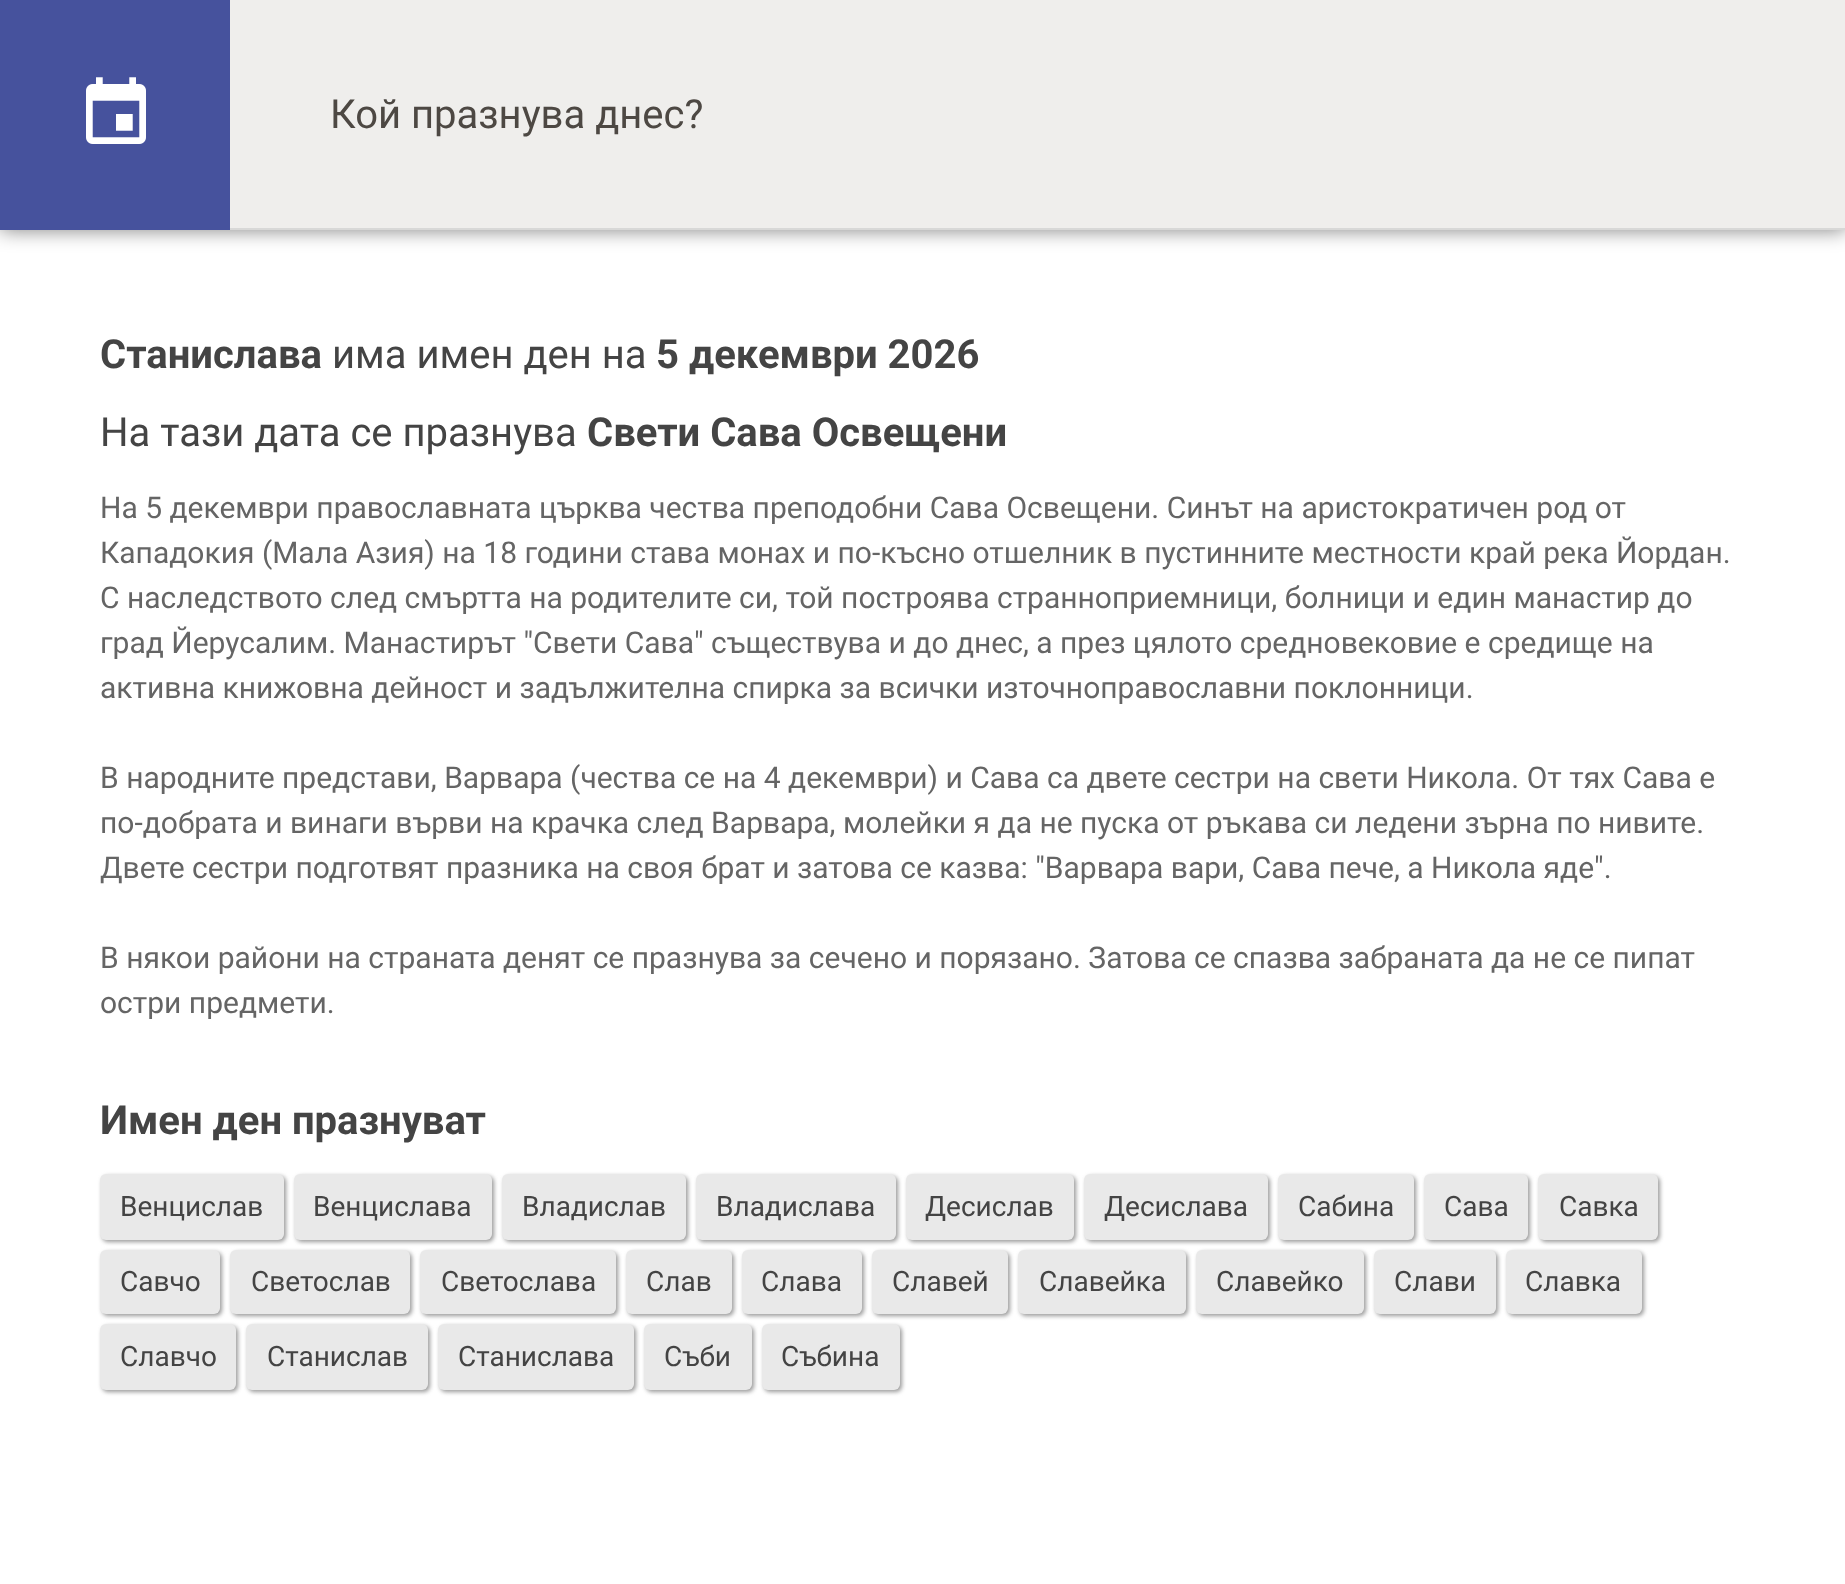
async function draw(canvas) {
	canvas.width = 1845;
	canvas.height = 1584;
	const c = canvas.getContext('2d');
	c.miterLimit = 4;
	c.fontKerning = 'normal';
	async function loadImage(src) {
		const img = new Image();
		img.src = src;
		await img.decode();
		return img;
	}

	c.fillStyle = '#fff';
	c.fillRect(0, 0, 1845, 1584);
	c.fillStyle = '#00000080';
	c.filter = 'blur(10px)';
	c.beginPath();
	c.rect(0, 0, 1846, 230);
	c.fill();
	c.filter = 'none';
	c.fillStyle = '#efeeec';
	c.fillRect(230, 0, 1615, 228);
	c.fillStyle = '#46529d';
	c.fillRect(0, 0, 230, 230);
	c.drawImage(await loadImage('img1.png'), 86, 77, 60, 67);
	c.fillStyle = '#d8d8d7';
	c.fillRect(230, 228, 1615, 2);
	c.font = '40px Roboto';
	c.fillStyle = '#4d4843';
	c.fillText('Кой празнува днес?', 330, 128);
	c.font = 'bold 40px Roboto';
	c.fillStyle = '#444';
	c.fillText('Станислава', 100, 368);
	c.font = '40px Roboto';
	c.fillText('има имен ден на', 332, 368);
	c.font = 'bold 40px Roboto';
	c.fillText('5 декември 2026', 656, 368);
	c.font = '40px Roboto';
	c.fillText('На тази дата се празнува', 100, 446);
	c.font = 'bold 40px Roboto';
	c.fillText('Свети Сава Освещени', 587, 446);
	c.font = '30px Roboto';
	c.fillStyle = '#656565';
	for (const [text, x, y] of [
		['На 5 декември православната църква чества преподобни Сава Освещени. Синът на аристократичен род от', 100, 518],
		['Кападокия (Мала Азия) на 18 години става монах и по-късно отшелник в пустинните местности край река Йордан.', 100, 563],
		['С наследството след смъртта на родителите си, той построява странноприемници, болници и един манастир до', 100, 608],
		['град Йерусалим. Манастирът "Свети Сава" съществува и до днес, а през цялото средновековие е средище на', 100, 653],
		['активна книжовна дейност и задължителна спирка за всички източноправославни поклонници.', 100, 698],
		['В народните представи, Варвара (чества се на 4 декември) и Сава са двете сестри на свети Никола. От тях Сава е', 100, 788],
		['по-добрата и винаги върви на крачка след Варвара, молейки я да не пуска от ръкава си ледени зърна по нивите.', 100, 833],
		['Двете сестри подготвят празника на своя брат и затова се казва: "Варвара вари, Сава пече, а Никола яде".', 100, 878],
		['В някои райони на страната денят се празнува за сечено и порязано. Затова се спазва забраната да не се пипат', 100, 968],
		['остри предмети.', 100, 1013],
	]) {
		c.fillText(text, x, y);
	}
	c.font = 'bold 40px Roboto';
	c.fillStyle = '#444';
	c.fillText('Имен ден празнуват', 100, 1134);
	c.fillStyle = '#999';
	c.filter = 'blur(2px)';
	c.beginPath();
	c.roundRect(102, 1176, 184, 66, 6);
	c.fill();
	c.filter = 'none';
	c.fillStyle = '#e9e9e9';
	c.beginPath();
	c.roundRect(100, 1174, 184, 66, 6);
	c.fill();
	c.font = '28px Roboto';
	c.fillStyle = '#444';
	c.fillText('Венцислав', 120, 1216);
	c.fillStyle = '#999';
	c.filter = 'blur(2px)';
	c.beginPath();
	c.roundRect(296, 1176, 198, 66, 6);
	c.fill();
	c.filter = 'none';
	c.fillStyle = '#e9e9e9';
	c.beginPath();
	c.roundRect(294, 1174, 198, 66, 6);
	c.fill();
	c.fillStyle = '#444';
	c.fillText('Венцислава', 313, 1216);
	c.fillStyle = '#999';
	c.filter = 'blur(2px)';
	c.beginPath();
	c.roundRect(504, 1176, 184, 66, 6);
	c.fill();
	c.filter = 'none';
	c.fillStyle = '#e9e9e9';
	c.beginPath();
	c.roundRect(502, 1174, 184, 66, 6);
	c.fill();
	c.fillStyle = '#444';
	c.fillText('Владислав', 522, 1216);
	c.fillStyle = '#999';
	c.filter = 'blur(2px)';
	c.beginPath();
	c.roundRect(698, 1176, 200, 66, 6);
	c.fill();
	c.filter = 'none';
	c.fillStyle = '#e9e9e9';
	c.beginPath();
	c.roundRect(696, 1174, 200, 66, 6);
	c.fill();
	c.fillStyle = '#444';
	c.fillText('Владислава', 716, 1216);
	c.fillStyle = '#999';
	c.filter = 'blur(2px)';
	c.beginPath();
	c.roundRect(908, 1176, 168, 66, 6);
	c.fill();
	c.filter = 'none';
	c.fillStyle = '#e9e9e9';
	c.beginPath();
	c.roundRect(906, 1174, 168, 66, 6);
	c.fill();
	c.fillStyle = '#444';
	c.fillText('Десислав', 925, 1216);
	c.fillStyle = '#999';
	c.filter = 'blur(2px)';
	c.beginPath();
	c.roundRect(1086, 1176, 184, 66, 6);
	c.fill();
	c.filter = 'none';
	c.fillStyle = '#e9e9e9';
	c.beginPath();
	c.roundRect(1084, 1174, 184, 66, 6);
	c.fill();
	c.fillStyle = '#444';
	c.fillText('Десислава', 1104, 1216);
	c.fillStyle = '#999';
	c.filter = 'blur(2px)';
	c.beginPath();
	c.roundRect(1280, 1176, 136, 66, 6);
	c.fill();
	c.filter = 'none';
	c.fillStyle = '#e9e9e9';
	c.beginPath();
	c.roundRect(1278, 1174, 136, 66, 6);
	c.fill();
	c.fillStyle = '#444';
	c.fillText('Сабина', 1298, 1216);
	c.fillStyle = '#999';
	c.filter = 'blur(2px)';
	c.beginPath();
	c.roundRect(1426, 1176, 104, 66, 6);
	c.fill();
	c.filter = 'none';
	c.fillStyle = '#e9e9e9';
	c.beginPath();
	c.roundRect(1424, 1174, 104, 66, 6);
	c.fill();
	c.fillStyle = '#444';
	c.fillText('Сава', 1444, 1216);
	c.fillStyle = '#999';
	c.filter = 'blur(2px)';
	c.beginPath();
	c.roundRect(1540, 1176, 120, 66, 6);
	c.fill();
	c.filter = 'none';
	c.fillStyle = '#e9e9e9';
	c.beginPath();
	c.roundRect(1538, 1174, 120, 66, 6);
	c.fill();
	c.fillStyle = '#444';
	c.fillText('Савка', 1559, 1216);
	c.fillStyle = '#999';
	c.filter = 'blur(2px)';
	c.beginPath();
	c.roundRect(102, 1252, 120, 64, 6);
	c.fill();
	c.filter = 'none';
	c.fillStyle = '#e9e9e9';
	c.beginPath();
	c.roundRect(100, 1250, 120, 64, 6);
	c.fill();
	c.fillStyle = '#444';
	c.fillText('Савчо', 120, 1291);
	c.fillStyle = '#999';
	c.filter = 'blur(2px)';
	c.beginPath();
	c.roundRect(232, 1252, 180, 64, 6);
	c.fill();
	c.filter = 'none';
	c.fillStyle = '#e9e9e9';
	c.beginPath();
	c.roundRect(230, 1250, 180, 64, 6);
	c.fill();
	c.fillStyle = '#444';
	c.fillText('Светослав', 251, 1291);
	c.fillStyle = '#999';
	c.filter = 'blur(2px)';
	c.beginPath();
	c.roundRect(422, 1252, 196, 64, 6);
	c.fill();
	c.filter = 'none';
	c.fillStyle = '#e9e9e9';
	c.beginPath();
	c.roundRect(420, 1250, 196, 64, 6);
	c.fill();
	c.fillStyle = '#444';
	c.fillText('Светослава', 441, 1291);
	c.fillStyle = '#999';
	c.filter = 'blur(2px)';
	c.beginPath();
	c.roundRect(628, 1252, 106, 64, 6);
	c.fill();
	c.filter = 'none';
	c.fillStyle = '#e9e9e9';
	c.beginPath();
	c.roundRect(626, 1250, 106, 64, 6);
	c.fill();
	c.fillStyle = '#444';
	c.fillText('Слав', 646, 1291);
	c.fillStyle = '#999';
	c.filter = 'blur(2px)';
	c.beginPath();
	c.roundRect(744, 1252, 120, 64, 6);
	c.fill();
	c.filter = 'none';
	c.fillStyle = '#e9e9e9';
	c.beginPath();
	c.roundRect(742, 1250, 120, 64, 6);
	c.fill();
	c.fillStyle = '#444';
	c.fillText('Слава', 761, 1291);
	c.fillStyle = '#999';
	c.filter = 'blur(2px)';
	c.beginPath();
	c.roundRect(874, 1252, 136, 64, 6);
	c.fill();
	c.filter = 'none';
	c.fillStyle = '#e9e9e9';
	c.beginPath();
	c.roundRect(872, 1250, 136, 64, 6);
	c.fill();
	c.fillStyle = '#444';
	c.fillText('Славей', 892, 1291);
	c.fillStyle = '#999';
	c.filter = 'blur(2px)';
	c.beginPath();
	c.roundRect(1020, 1252, 168, 64, 6);
	c.fill();
	c.filter = 'none';
	c.fillStyle = '#e9e9e9';
	c.beginPath();
	c.roundRect(1018, 1250, 168, 64, 6);
	c.fill();
	c.fillStyle = '#444';
	c.fillText('Славейка', 1039, 1291);
	c.fillStyle = '#999';
	c.filter = 'blur(2px)';
	c.beginPath();
	c.roundRect(1198, 1252, 168, 64, 6);
	c.fill();
	c.filter = 'none';
	c.fillStyle = '#e9e9e9';
	c.beginPath();
	c.roundRect(1196, 1250, 168, 64, 6);
	c.fill();
	c.fillStyle = '#444';
	c.fillText('Славейко', 1216, 1291);
	c.fillStyle = '#999';
	c.filter = 'blur(2px)';
	c.beginPath();
	c.roundRect(1376, 1252, 122, 64, 6);
	c.fill();
	c.filter = 'none';
	c.fillStyle = '#e9e9e9';
	c.beginPath();
	c.roundRect(1374, 1250, 122, 64, 6);
	c.fill();
	c.fillStyle = '#444';
	c.fillText('Слави', 1394, 1291);
	c.fillStyle = '#999';
	c.filter = 'blur(2px)';
	c.beginPath();
	c.roundRect(1508, 1252, 136, 64, 6);
	c.fill();
	c.filter = 'none';
	c.fillStyle = '#e9e9e9';
	c.beginPath();
	c.roundRect(1506, 1250, 136, 64, 6);
	c.fill();
	c.fillStyle = '#444';
	c.fillText('Славка', 1525, 1291);
	c.fillStyle = '#999';
	c.filter = 'blur(2px)';
	c.beginPath();
	c.roundRect(102, 1326, 136, 66, 6);
	c.fill();
	c.filter = 'none';
	c.fillStyle = '#e9e9e9';
	c.beginPath();
	c.roundRect(100, 1324, 136, 66, 6);
	c.fill();
	c.fillStyle = '#444';
	c.fillText('Славчо', 120, 1366);
	c.fillStyle = '#999';
	c.filter = 'blur(2px)';
	c.beginPath();
	c.roundRect(248, 1326, 182, 66, 6);
	c.fill();
	c.filter = 'none';
	c.fillStyle = '#e9e9e9';
	c.beginPath();
	c.roundRect(246, 1324, 182, 66, 6);
	c.fill();
	c.fillStyle = '#444';
	c.fillText('Станислав', 267, 1366);
	c.fillStyle = '#999';
	c.filter = 'blur(2px)';
	c.beginPath();
	c.roundRect(440, 1326, 196, 66, 6);
	c.fill();
	c.filter = 'none';
	c.fillStyle = '#e9e9e9';
	c.beginPath();
	c.roundRect(438, 1324, 196, 66, 6);
	c.fill();
	c.fillStyle = '#444';
	c.fillText('Станислава', 458, 1366);
	c.fillStyle = '#999';
	c.filter = 'blur(2px)';
	c.beginPath();
	c.roundRect(646, 1326, 108, 66, 6);
	c.fill();
	c.filter = 'none';
	c.fillStyle = '#e9e9e9';
	c.beginPath();
	c.roundRect(644, 1324, 108, 66, 6);
	c.fill();
	c.fillStyle = '#444';
	c.fillText('Съби', 664, 1366);
	c.fillStyle = '#999';
	c.filter = 'blur(2px)';
	c.beginPath();
	c.roundRect(764, 1326, 138, 66, 6);
	c.fill();
	c.filter = 'none';
	c.fillStyle = '#e9e9e9';
	c.beginPath();
	c.roundRect(762, 1324, 138, 66, 6);
	c.fill();
	c.fillStyle = '#444';
	c.fillText('Събина', 781, 1366);
}

draw(document.querySelector('canvas'));
